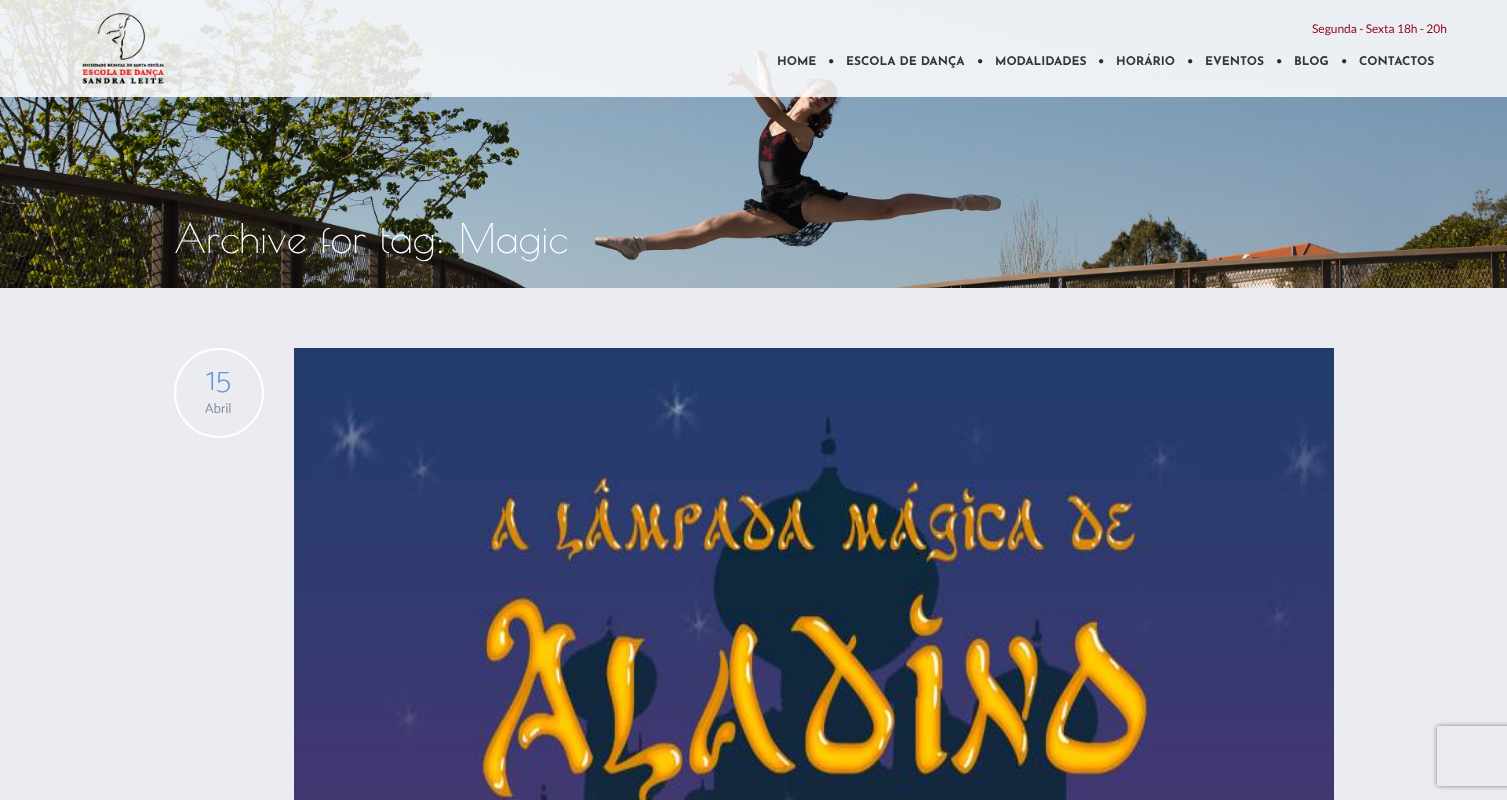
async function draw(canvas) {
	canvas.width = 1507;
	canvas.height = 800;
	const c = canvas.getContext('2d');
	c.miterLimit = 4;
	c.fontKerning = 'normal';
	async function loadImage(src) {
		const img = new Image();
		img.src = src;
		await img.decode();
		return img;
	}

	c.fillStyle = '#ebecf2';
	c.fillRect(0, 0, 1507, 800);
	c.drawImage(await loadImage('img8.png'), 0, 0, 1507, 288);
	c.fillStyle = '#ffffffdb';
	c.fillRect(0, 0, 1507, 97);
	c.font = '12px Lato';
	c.fillStyle = '#96021a';
	c.fillText('Segunda - Sexta 18h - 20h', 1312, 33);
	c.drawImage(await loadImage('img1.png'), 82, 13, 83, 71);
	c.font = 'bold 12px Josefin Sans';
	c.fillStyle = '#353535';
	c.fillText('HOME', 777, 65);
	c.drawImage(await loadImage('img2.png'), 829, 59, 5, 5);
	c.fillText('ESCOLA DE DANÇA', 846, 65);
	c.drawImage(await loadImage('img3.png'), 978, 59, 5, 5);
	c.fillText('MODALIDADES', 995, 65);
	c.drawImage(await loadImage('img4.png'), 1099, 59, 5, 5);
	c.fillText('HORÁRIO', 1116, 65);
	c.drawImage(await loadImage('img5.png'), 1188, 59, 5, 5);
	c.fillText('EVENTOS', 1205, 65);
	c.drawImage(await loadImage('img6.png'), 1277, 59, 5, 5);
	c.fillText('BLOG', 1294, 65);
	c.drawImage(await loadImage('img7.png'), 1342, 59, 5, 5);
	c.fillText('CONTACTOS', 1359, 65);
	c.font = '40px Poiret One';
	c.fillStyle = '#fff';
	c.fillText('Archive for tag: Magic', 174, 253);
	c.beginPath();
	c.arc(219, 393, 44, 0, 2 * Math.PI);
	c.strokeStyle = '#fff';
	c.lineWidth = 2;
	c.stroke();
	c.font = '100 32px Catamaran';
	c.fillStyle = '#6592d7';
	c.fillText('15', 206, 390);
	c.font = '14px Catamaran';
	c.fillStyle = '#878a9a';
	c.fillText('Abril', 205, 413);
	c.drawImage(await loadImage('img9.png'), 294, 348, 1040, 452);
	c.save();
	c.beginPath();
	c.moveTo(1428, 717);
	c.lineTo(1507, 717);
	c.lineTo(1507, 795);
	c.lineTo(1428, 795);
	c.closePath();
	c.moveTo(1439, 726);
	c.lineTo(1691, 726);
	c.bezierCurveTo(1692, 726, 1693, 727, 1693, 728);
	c.lineTo(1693, 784);
	c.bezierCurveTo(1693, 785, 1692, 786, 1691, 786);
	c.lineTo(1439, 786);
	c.bezierCurveTo(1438, 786, 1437, 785, 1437, 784);
	c.lineTo(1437, 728);
	c.bezierCurveTo(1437, 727, 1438, 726, 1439, 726);
	c.closePath();
	c.clip('evenodd');
	c.fillStyle = '#808080';
	c.filter = 'blur(2.5px)';
	c.beginPath();
	c.roundRect(1437, 726, 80, 60, 2);
	c.fill();
	c.filter = 'none';
	c.restore();
}

draw(document.querySelector('canvas'));
